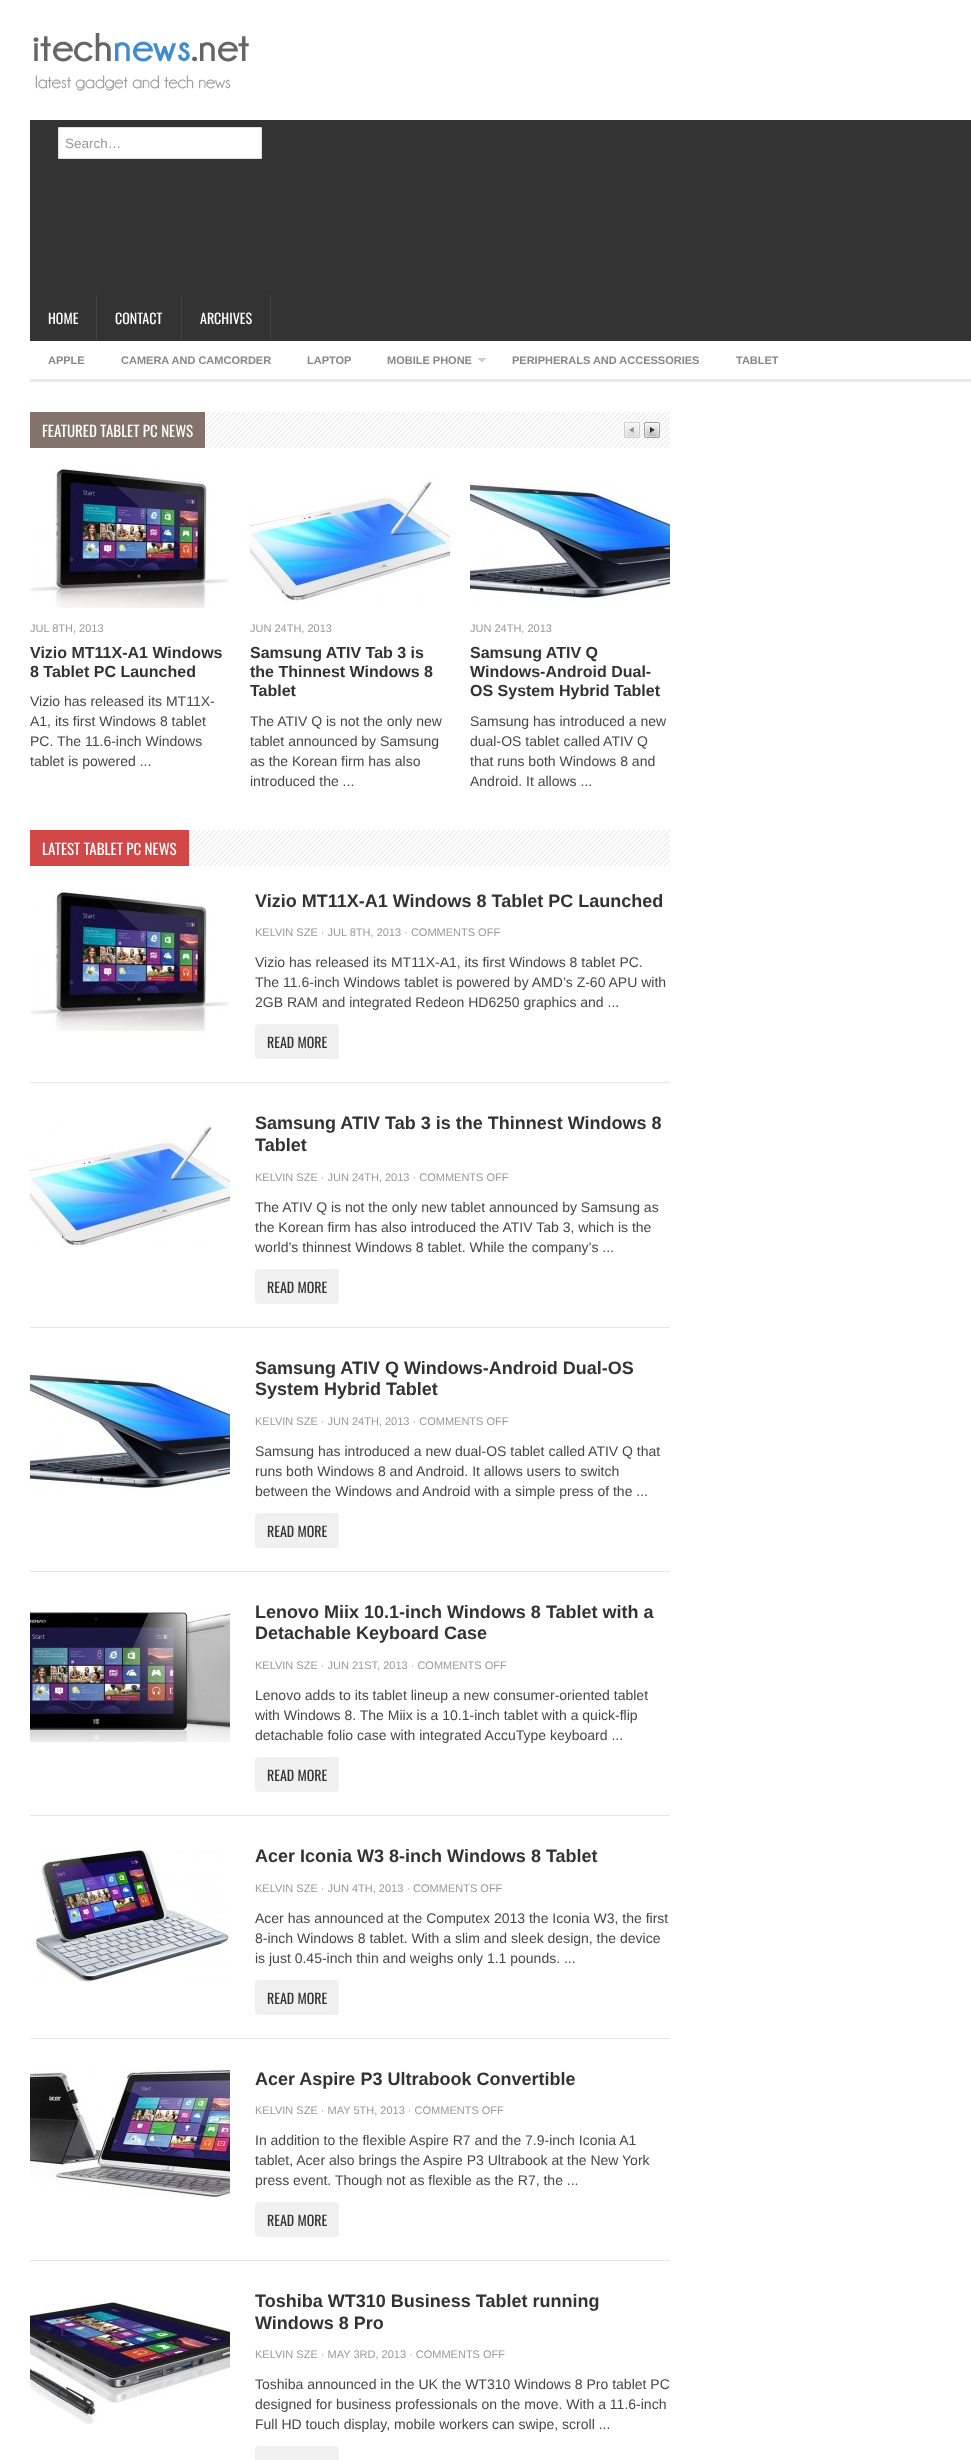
async function draw(canvas) {
	canvas.width = 971;
	canvas.height = 2460;
	const c = canvas.getContext('2d');
	c.miterLimit = 4;
	c.fontKerning = 'normal';
	async function loadImage(src) {
		const img = new Image();
		img.src = src;
		await img.decode();
		return img;
	}

	c.fillStyle = '#fff';
	c.fillRect(0, 0, 971, 2460);
	c.drawImage(await loadImage('img1.png'), 33, 33, 216, 58);
	c.fillStyle = '#333';
	c.fillRect(30, 120, 941, 221);
	c.fillStyle = '#fff';
	c.beginPath();
	c.rect(58.5, 127.5, 203, 31);
	c.fill();
	c.strokeStyle = '#ddd';
	c.stroke();
	c.font = '13.5px Liberation Sans';
	c.fillStyle = '#999';
	c.fillText('Search…', 65, 148);
	c.fillStyle = '#444';
	c.fillRect(96, 295, 1, 46);
	c.font = '14px Oswald';
	c.fillStyle = '#fff';
	c.fillText('HOME', 48, 324);
	c.fillStyle = '#444';
	c.fillRect(181, 295, 1, 46);
	c.fillStyle = '#fff';
	c.fillText('CONTACT', 115, 324);
	c.fillStyle = '#444';
	c.fillRect(270, 295, 1, 46);
	c.fillStyle = '#fff';
	c.fillText('ARCHIVES', 200, 324);
	c.fillStyle = '#e9e9e9';
	c.fillRect(30, 379, 941, 3);
	c.font = 'bold 11px Liberation Sans';
	c.fillStyle = '#888';
	for (const [text, x, y] of [
		['APPLE', 48, 364],
		['CAMERA AND CAMCORDER', 121, 364],
		['LAPTOP', 307, 364],
		['MOBILE PHONE', 387, 364],
	]) {
		c.fillText(text, x, y);
	}
	c.drawImage(await loadImage('img2.png'), 478, 358, 8, 4);
	c.drawImage(await loadImage('img3.png'), 479, 359, 6, 3);
	c.drawImage(await loadImage('img4.png'), 480, 360, 3, 2);
	c.fillText('PERIPHERALS AND ACCESSORIES', 512, 364);
	c.fillText('TABLET', 736, 364);
	c.drawImage(await loadImage('img5.png'), 205, 412, 465, 36);
	c.fillStyle = '#84736c';
	c.fillRect(30, 412, 175, 36);
	c.font = '15px Oswald';
	c.fillStyle = '#fff';
	c.fillText('FEATURED TABLET PC NEWS', 42, 437);
	c.drawImage(await loadImage('img6.png'), 624, 422, 16, 16);
	c.drawImage(await loadImage('img7.png'), 644, 422, 16, 16);
	c.drawImage(await loadImage('img8.png'), 30, 468, 199, 140);
	c.font = '11px Liberation Sans';
	c.fillStyle = '#999';
	c.fillText('JUL 8TH, 2013', 30, 632);
	c.font = 'bold 16px Liberation Sans';
	c.fillStyle = '#333';
	c.fillText('Vizio MT11X-A1 Windows', 30, 658);
	c.fillText('8 Tablet PC Launched', 30, 677);
	c.font = '14px Liberation Sans';
	c.fillStyle = '#474747';
	for (const [text, x, y] of [
		['Vizio has released its MT11X-', 30, 706],
		['A1, its first Windows 8 tablet', 30, 726],
		['PC. The 11.6-inch Windows', 30, 746],
		['tablet is powered ...', 30, 766],
	]) {
		c.fillText(text, x, y);
	}
	c.drawImage(await loadImage('img9.png'), 250, 476, 200, 127);
	c.font = '11px Liberation Sans';
	c.fillStyle = '#999';
	c.fillText('JUN 24TH, 2013', 250, 632);
	c.font = 'bold 16px Liberation Sans';
	c.fillStyle = '#333';
	for (const [text, x, y] of [
		['Samsung ATIV Tab 3 is', 250, 658],
		['the Thinnest Windows 8', 250, 677],
		['Tablet', 250, 696],
	]) {
		c.fillText(text, x, y);
	}
	c.font = '14px Liberation Sans';
	c.fillStyle = '#474747';
	for (const [text, x, y] of [
		['The ATIV Q is not the only new', 250, 726],
		['tablet announced by Samsung', 250, 746],
		['as the Korean firm has also', 250, 766],
		['introduced the ...', 250, 786],
	]) {
		c.fillText(text, x, y);
	}
	c.drawImage(await loadImage('img10.png'), 470, 484, 200, 119);
	c.font = '11px Liberation Sans';
	c.fillStyle = '#999';
	c.fillText('JUN 24TH, 2013', 470, 632);
	c.font = 'bold 16px Liberation Sans';
	c.fillStyle = '#333';
	for (const [text, x, y] of [
		['Samsung ATIV Q', 470, 658],
		['Windows-Android Dual-', 470, 677],
		['OS System Hybrid Tablet', 470, 696],
	]) {
		c.fillText(text, x, y);
	}
	c.font = '14px Liberation Sans';
	c.fillStyle = '#474747';
	for (const [text, x, y] of [
		['Samsung has introduced a new', 470, 726],
		['dual-OS tablet called ATIV Q', 470, 746],
		['that runs both Windows 8 and', 470, 766],
		['Android. It allows ...', 470, 786],
	]) {
		c.fillText(text, x, y);
	}
	c.drawImage(await loadImage('img11.png'), 189, 830, 481, 36);
	c.fillStyle = '#d24747';
	c.fillRect(30, 830, 159, 36);
	c.font = '15px Oswald';
	c.fillStyle = '#fff';
	c.fillText('LATEST TABLET PC NEWS', 42, 855);
	c.fillStyle = '#e6e6e6';
	c.fillRect(30, 1082, 640, 1);
	c.drawImage(await loadImage('img8.png'), 30, 891, 199, 140);
	c.font = 'bold 18px Liberation Sans';
	c.fillStyle = '#333';
	c.fillText('Vizio MT11X-A1 Windows 8 Tablet PC Launched', 255, 907);
	c.font = '11px Liberation Sans';
	c.fillStyle = '#999';
	c.fillText('KELVIN SZE · JUL 8TH, 2013 · COMMENTS OFF', 255, 936);
	c.font = '14px Liberation Sans';
	c.fillStyle = '#474747';
	for (const [text, x, y] of [
		['Vizio has released its MT11X-A1, its first Windows 8 tablet PC.', 255, 967],
		['The 11.6-inch Windows tablet is powered by AMD’s Z-60 APU with', 255, 987],
		['2GB RAM and integrated Redeon HD6250 graphics and ...', 255, 1007],
	]) {
		c.fillText(text, x, y);
	}
	c.fillStyle = '#f0f0f0';
	c.beginPath();
	c.roundRect(255, 1024, 84, 35, 4);
	c.fill();
	c.font = '14px Oswald';
	c.fillStyle = '#333';
	c.fillText('READ MORE', 267, 1048);
	c.fillStyle = '#e6e6e6';
	c.fillRect(30, 1327, 640, 1);
	c.drawImage(await loadImage('img9.png'), 30, 1121, 200, 127);
	c.font = 'bold 18px Liberation Sans';
	c.fillStyle = '#333';
	c.fillText('Samsung ATIV Tab 3 is the Thinnest Windows 8', 255, 1129);
	c.fillText('Tablet', 255, 1151);
	c.font = '11px Liberation Sans';
	c.fillStyle = '#999';
	c.fillText('KELVIN SZE · JUN 24TH, 2013 · COMMENTS OFF', 255, 1181);
	c.font = '14px Liberation Sans';
	c.fillStyle = '#474747';
	for (const [text, x, y] of [
		['The ATIV Q is not the only new tablet announced by Samsung as', 255, 1212],
		['the Korean firm has also introduced the ATIV Tab 3, which is the', 255, 1232],
		['world’s thinnest Windows 8 tablet. While the company’s ...', 255, 1252],
	]) {
		c.fillText(text, x, y);
	}
	c.fillStyle = '#f0f0f0';
	c.beginPath();
	c.roundRect(255, 1269, 84, 35, 4);
	c.fill();
	c.font = '14px Oswald';
	c.fillStyle = '#333';
	c.fillText('READ MORE', 267, 1293);
	c.fillStyle = '#e6e6e6';
	c.fillRect(30, 1571, 640, 1);
	c.drawImage(await loadImage('img10.png'), 30, 1374, 200, 119);
	c.font = 'bold 18px Liberation Sans';
	c.fillStyle = '#333';
	c.fillText('Samsung ATIV Q Windows-Android Dual-OS', 255, 1374);
	c.fillText('System Hybrid Tablet', 255, 1395);
	c.font = '11px Liberation Sans';
	c.fillStyle = '#999';
	c.fillText('KELVIN SZE · JUN 24TH, 2013 · COMMENTS OFF', 255, 1425);
	c.font = '14px Liberation Sans';
	c.fillStyle = '#474747';
	for (const [text, x, y] of [
		['Samsung has introduced a new dual-OS tablet called ATIV Q that', 255, 1456],
		['runs both Windows 8 and Android. It allows users to switch', 255, 1476],
		['between the Windows and Android with a simple press of the ...', 255, 1496],
	]) {
		c.fillText(text, x, y);
	}
	c.fillStyle = '#f0f0f0';
	c.beginPath();
	c.roundRect(255, 1513, 84, 35, 4);
	c.fill();
	c.font = '14px Oswald';
	c.fillStyle = '#333';
	c.fillText('READ MORE', 267, 1537);
	c.fillStyle = '#e6e6e6';
	c.fillRect(30, 1815, 640, 1);
	c.drawImage(await loadImage('img12.png'), 30, 1610, 200, 132);
	c.font = 'bold 18px Liberation Sans';
	c.fillStyle = '#333';
	c.fillText('Lenovo Miix 10.1-inch Windows 8 Tablet with a', 255, 1618);
	c.fillText('Detachable Keyboard Case', 255, 1639);
	c.font = '11px Liberation Sans';
	c.fillStyle = '#999';
	c.fillText('KELVIN SZE · JUN 21ST, 2013 · COMMENTS OFF', 255, 1669);
	c.font = '14px Liberation Sans';
	c.fillStyle = '#474747';
	for (const [text, x, y] of [
		['Lenovo adds to its tablet lineup a new consumer-oriented tablet', 255, 1700],
		['with Windows 8. The Miix is a 10.1-inch tablet with a quick-flip', 255, 1720],
		['detachable folio case with integrated AccuType keyboard ...', 255, 1740],
	]) {
		c.fillText(text, x, y);
	}
	c.fillStyle = '#f0f0f0';
	c.beginPath();
	c.roundRect(255, 1757, 84, 35, 4);
	c.fill();
	c.font = '14px Oswald';
	c.fillStyle = '#333';
	c.fillText('READ MORE', 267, 1781);
	c.fillStyle = '#e6e6e6';
	c.fillRect(30, 2038, 640, 1);
	c.drawImage(await loadImage('img13.png'), 31, 1846, 199, 136);
	c.font = 'bold 18px Liberation Sans';
	c.fillStyle = '#333';
	c.fillText('Acer Iconia W3 8-inch Windows 8 Tablet', 255, 1862);
	c.font = '11px Liberation Sans';
	c.fillStyle = '#999';
	c.fillText('KELVIN SZE · JUN 4TH, 2013 · COMMENTS OFF', 255, 1892);
	c.font = '14px Liberation Sans';
	c.fillStyle = '#474747';
	for (const [text, x, y] of [
		['Acer has announced at the Computex 2013 the Iconia W3, the first', 255, 1923],
		['8-inch Windows 8 tablet. With a slim and sleek design, the device', 255, 1943],
		['is just 0.45-inch thin and weighs only 1.1 pounds. ...', 255, 1963],
	]) {
		c.fillText(text, x, y);
	}
	c.fillStyle = '#f0f0f0';
	c.beginPath();
	c.roundRect(255, 1980, 84, 35, 4);
	c.fill();
	c.font = '14px Oswald';
	c.fillStyle = '#333';
	c.fillText('READ MORE', 267, 2004);
	c.fillStyle = '#e6e6e6';
	c.fillRect(30, 2260, 640, 1);
	c.drawImage(await loadImage('img14.png'), 30, 2069, 200, 128);
	c.font = 'bold 18px Liberation Sans';
	c.fillStyle = '#333';
	c.fillText('Acer Aspire P3 Ultrabook Convertible', 255, 2085);
	c.font = '11px Liberation Sans';
	c.fillStyle = '#999';
	c.fillText('KELVIN SZE · MAY 5TH, 2013 · COMMENTS OFF', 255, 2114);
	c.font = '14px Liberation Sans';
	c.fillStyle = '#474747';
	for (const [text, x, y] of [
		['In addition to the flexible Aspire R7 and the 7.9-inch Iconia A1', 255, 2145],
		['tablet, Acer also brings the Aspire P3 Ultrabook at the New York', 255, 2165],
		['press event. Though not as flexible as the R7, the ...', 255, 2185],
	]) {
		c.fillText(text, x, y);
	}
	c.fillStyle = '#f0f0f0';
	c.beginPath();
	c.roundRect(255, 2202, 84, 35, 4);
	c.fill();
	c.font = '14px Oswald';
	c.fillStyle = '#333';
	c.fillText('READ MORE', 267, 2226);
	c.drawImage(await loadImage('img15.png'), 30, 2299, 200, 125);
	c.font = 'bold 18px Liberation Sans';
	c.fillText('Toshiba WT310 Business Tablet running', 255, 2307);
	c.fillText('Windows 8 Pro', 255, 2329);
	c.font = '11px Liberation Sans';
	c.fillStyle = '#999';
	c.fillText('KELVIN SZE · MAY 3RD, 2013 · COMMENTS OFF', 255, 2358);
	c.font = '14px Liberation Sans';
	c.fillStyle = '#474747';
	for (const [text, x, y] of [
		['Toshiba announced in the UK the WT310 Windows 8 Pro tablet PC', 255, 2389],
		['designed for business professionals on the move. With a 11.6-inch', 255, 2409],
		['Full HD touch display, mobile workers can swipe, scroll ...', 255, 2429],
	]) {
		c.fillText(text, x, y);
	}
	c.fillStyle = '#f0f0f0';
	c.beginPath();
	c.roundRect(255, 2446, 84, 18, 4);
	c.fill();
}

draw(document.querySelector('canvas'));
